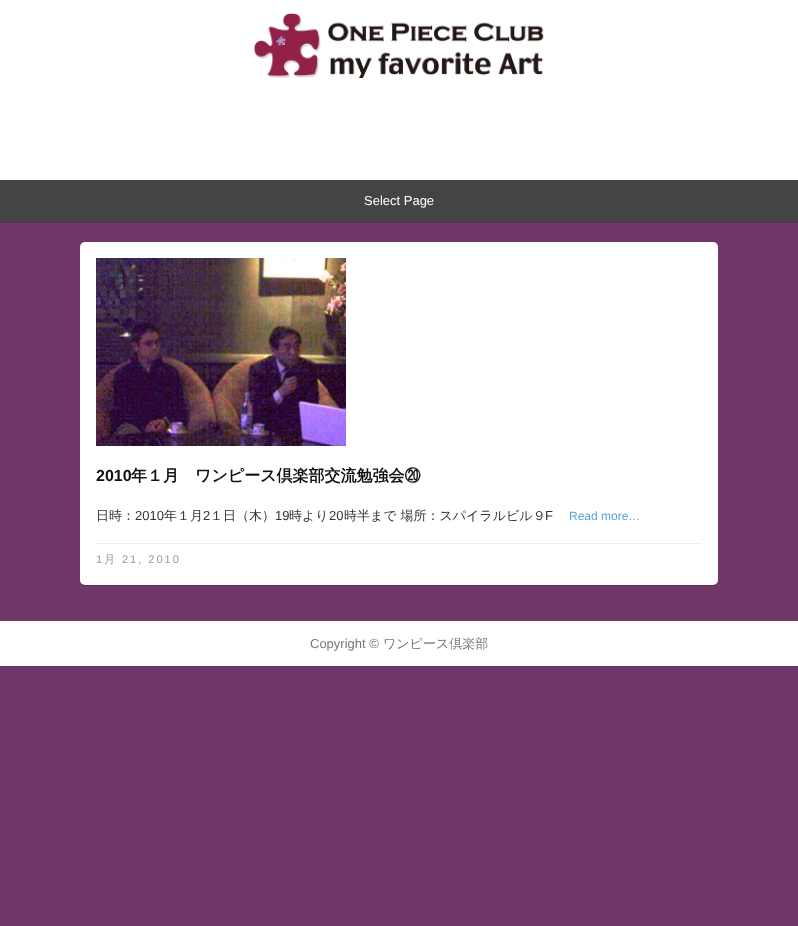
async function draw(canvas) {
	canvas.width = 798;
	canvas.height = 926;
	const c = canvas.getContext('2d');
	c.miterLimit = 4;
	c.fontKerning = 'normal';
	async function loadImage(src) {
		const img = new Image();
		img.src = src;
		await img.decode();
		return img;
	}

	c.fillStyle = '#703869';
	c.fillRect(0, 0, 798, 926);
	c.fillStyle = '#fff';
	c.fillRect(0, 0, 798, 180);
	c.drawImage(await loadImage('img1.png'), 254, 13, 290, 65);
	c.fillStyle = '#5a2d54';
	c.fillRect(0, 222, 798, 1);
	c.fillStyle = '#444';
	c.fillRect(0, 180, 798, 42);
	c.font = '13px Liberation Sans';
	c.fillStyle = '#fff';
	c.fillText('Select Page', 364, 205);
	c.fillStyle = '#5a2d54';
	c.beginPath();
	c.moveTo(80, 580);
	c.bezierCurveTo(80, 583, 82, 586, 85, 586);
	c.lineTo(713, 586);
	c.bezierCurveTo(716, 586, 718, 583, 718, 580);
	c.bezierCurveTo(718, 583, 716, 585, 713, 585);
	c.lineTo(85, 585);
	c.bezierCurveTo(82, 585, 80, 583, 80, 580);
	c.closePath();
	c.fill();
	c.fillStyle = '#fff';
	c.beginPath();
	c.roundRect(80, 242, 638, 343, 5);
	c.fill();
	c.drawImage(await loadImage('img2.png'), 96, 258, 250, 188);
	c.font = 'bold 16px Liberation Sans';
	c.fillStyle = '#111';
	c.fillText('2010', 96, 481);
	c.font = 'bold 16px WenQuanYi Zen Hei';
	c.fillText('年１月　ワンピース倶楽部交流勉強会⑳', 131, 481);
	c.font = '500 13px WenQuanYi Zen Hei';
	c.fillStyle = '#333';
	c.fillText('日時：', 96, 520);
	c.font = '13px Liberation Sans';
	c.fillText('2010', 135, 520);
	c.font = '500 13px WenQuanYi Zen Hei';
	c.fillText('年１月', 164, 520);
	c.font = '13px Liberation Sans';
	c.fillText('2', 203, 520);
	c.font = '500 13px WenQuanYi Zen Hei';
	c.fillText('１日（木）', 210, 520);
	c.font = '13px Liberation Sans';
	c.fillText('19', 275, 520);
	c.font = '500 13px WenQuanYi Zen Hei';
	c.fillText('時より', 289, 520);
	c.font = '13px Liberation Sans';
	c.fillText('20', 329, 520);
	c.font = '500 13px WenQuanYi Zen Hei';
	c.fillText('時半まで 場所：スパイラルビル９', 344, 520);
	c.font = '13px Liberation Sans';
	c.fillText('F', 545, 520);
	c.font = '12px Liberation Sans';
	c.fillStyle = '#59a0d6';
	c.fillText('Read more…', 569, 520);
	c.fillStyle = '#eee';
	c.fillRect(96, 543, 606, 1);
	c.letterSpacing = '2px';
	c.font = '11px Liberation Sans';
	c.fillStyle = '#999';
	c.fillText('1', 96, 563);
	c.font = '500 11px WenQuanYi Zen Hei';
	c.fillText('月', 104, 563);
	c.font = '11px Liberation Sans';
	c.fillText('21, 2010', 122, 563);
	c.fillStyle = '#fff';
	c.fillRect(0, 621, 798, 45);
	c.letterSpacing = '0px';
	c.font = '13px Liberation Sans';
	c.fillStyle = '#777';
	c.fillText('Copyright ©', 310, 648);
	c.font = '500 13px WenQuanYi Zen Hei';
	c.fillText('ワンピース倶楽部', 383, 648);
}

draw(document.querySelector('canvas'));
